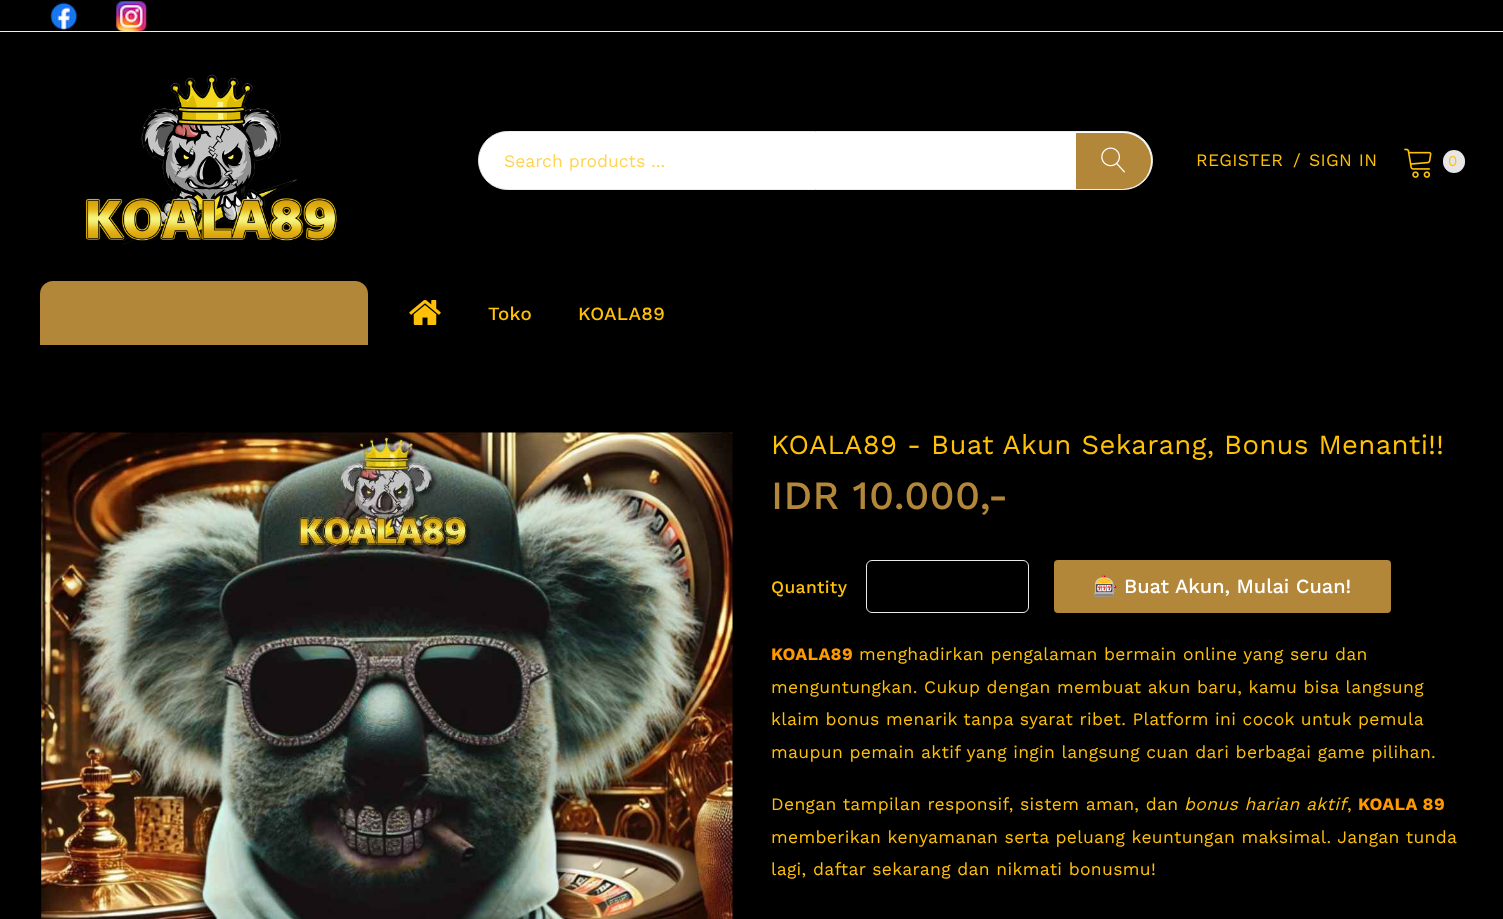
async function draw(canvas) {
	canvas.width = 1503;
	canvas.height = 919;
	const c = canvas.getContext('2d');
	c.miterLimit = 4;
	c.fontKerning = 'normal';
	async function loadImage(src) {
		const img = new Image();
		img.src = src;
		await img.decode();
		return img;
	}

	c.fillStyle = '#000';
	c.fillRect(0, 0, 1503, 919);
	c.fillStyle = '#ededed';
	c.fillRect(0, 31, 1503, 1);
	c.drawImage(await loadImage('img1.png'), 50, 2, 28, 29);
	c.drawImage(await loadImage('img2.png'), 116, 1, 31, 31);
	c.drawImage(await loadImage('img3.png'), 85, 74, 252, 171);
	c.fillStyle = '#fff';
	c.beginPath();
	c.roundRect(478.5, 131.5, 674, 58, 29);
	c.fill();
	c.strokeStyle = '#ededed';
	c.stroke();
	c.font = '17.5px Work Sans';
	c.fillStyle = '#ffd451';
	c.fillText('Search products ...', 504, 167);
	c.fillStyle = '#b3873a';
	c.beginPath();
	c.roundRect(1076, 133, 75, 56, [0, 28, 28, 0]);
	c.fill();
	c.drawImage(await loadImage('img4.png'), 1101, 147, 24, 26);
	c.letterSpacing = '0.35px';
	c.fillStyle = '#ffc107';
	for (const [text, x, y] of [
		['REGISTER', 1196, 166],
		['/', 1293, 166],
		['SIGN IN', 1309, 166],
	]) {
		c.fillText(text, x, y);
	}
	c.drawImage(await loadImage('img5.png'), 1404, 148, 28, 30);
	c.fillStyle = '#e6e6e6';
	c.beginPath();
	c.roundRect(1443, 150, 22, 23, 11);
	c.fill();
	c.font = '15px Work Sans';
	c.fillStyle = '#ffc107';
	c.fillText('0', 1448, 166);
	c.fillStyle = '#b3873a';
	c.beginPath();
	c.roundRect(40, 281, 328, 64, [13, 13, 0, 0]);
	c.fill();
	c.drawImage(await loadImage('img6.png'), 409, 300, 32, 25);
	c.font = '500 18.75px Work Sans';
	c.fillStyle = '#ffc107';
	c.fillText('Toko', 488, 320);
	c.fillText('KOALA89', 578, 320);
	c.drawImage(await loadImage('img7.png'), 41, 432, 692, 487);
	c.font = '27.5px Work Sans';
	c.fillText('KOALA89 - Buat Akun Sekarang, Bonus Menanti!!', 771, 454);
	c.font = '500 40px Work Sans';
	c.fillStyle = '#b3873a';
	c.fillText('IDR 10.000,-', 771, 509);
	c.font = '500 17.5px Work Sans';
	c.fillStyle = '#ffc107';
	c.fillText('Quantity', 771, 593);
	c.beginPath();
	c.roundRect(866.5, 560.5, 162, 52, 5.5);
	c.strokeStyle = '#ebebeb';
	c.stroke();
	c.fillStyle = '#b3873a';
	c.beginPath();
	c.roundRect(1054, 560, 337, 53, 4);
	c.fill();
	c.letterSpacing = '0px';
	c.font = '20px Noto Color Emoji';
	c.fillStyle = '#fff';
	c.fillText('🎰', 1093, 593);
	c.font = '500 20px Work Sans';
	c.fillText('Buat Akun, Mulai Cuan!', 1124, 593);
	c.letterSpacing = '0.35px';
	c.font = 'bold 17.5px Work Sans';
	c.fillStyle = '#f90';
	c.fillText('KOALA89', 771, 660);
	c.font = '17.5px Work Sans';
	c.fillStyle = '#ffc107';
	for (const [text, x, y] of [
		['menghadirkan pengalaman bermain online yang seru dan', 859, 660],
		['menguntungkan. Cukup dengan membuat akun baru, kamu bisa langsung', 771, 693],
		['klaim bonus menarik tanpa syarat ribet. Platform ini cocok untuk pemula', 771, 725],
		['maupun pemain aktif yang ingin langsung cuan dari berbagai game pilihan.', 771, 758],
		['Dengan tampilan responsif, sistem aman, dan', 771, 810],
	]) {
		c.fillText(text, x, y);
	}
	c.font = 'italic 17.5px Work Sans';
	c.fillText('bonus harian aktif', 1184, 810);
	c.font = 'bold 17.5px Work Sans';
	c.fillStyle = '#f90';
	c.fillText('KOALA 89', 1358, 810);
	c.font = '17.5px Work Sans';
	c.fillStyle = '#ffc107';
	for (const [text, x, y] of [
		[',', 1347, 810],
		['memberikan kenyamanan serta peluang keuntungan maksimal. Jangan tunda', 771, 843],
		['lagi, daftar sekarang dan nikmati bonusmu!', 771, 875],
	]) {
		c.fillText(text, x, y);
	}
}

draw(document.querySelector('canvas'));
